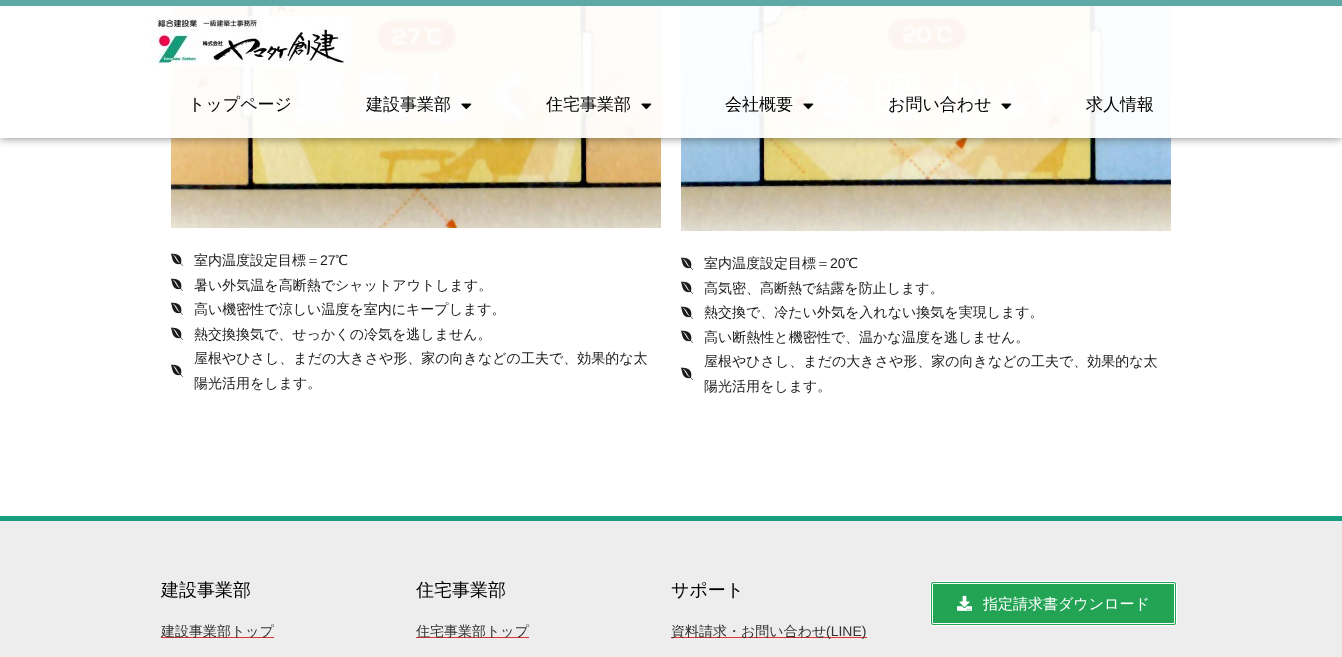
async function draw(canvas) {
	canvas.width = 1342;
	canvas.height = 657;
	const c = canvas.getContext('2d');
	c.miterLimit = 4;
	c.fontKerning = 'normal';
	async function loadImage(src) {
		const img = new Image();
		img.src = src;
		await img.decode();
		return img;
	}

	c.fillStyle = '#fff';
	c.fillRect(0, 0, 1342, 657);
	c.drawImage(await loadImage('img6.png'), 171, 6, 490, 222);
	c.drawImage(await loadImage('img8.png'), 681, 6, 490, 225);
	c.save();
	c.beginPath();
	c.rect(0, 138, 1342, 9);
	c.clip();
	c.fillStyle = '#00000080';
	c.filter = 'blur(5px)';
	c.beginPath();
	c.rect(0, 0, 1342, 138);
	c.fill();
	c.filter = 'none';
	c.restore();
	c.fillStyle = '#fffffff0';
	c.fillRect(171, 6, 1000, 132);
	c.fillStyle = '#5ea8a6';
	c.fillRect(0, 0, 1342, 6);
	c.drawImage(await loadImage('img1.png'), 151, 16, 200, 50);
	c.font = '500 17px WenQuanYi Zen Hei';
	c.fillStyle = '#000';
	c.fillText('トップページ', 188, 110);
	c.fillText('建設事業部', 366, 110);
	c.drawImage(await loadImage('img2.png'), 461, 103, 11, 7);
	c.fillText('住宅事業部', 546, 110);
	c.drawImage(await loadImage('img3.png'), 641, 103, 11, 7);
	c.fillText('会社概要', 725, 110);
	c.drawImage(await loadImage('img4.png'), 803, 103, 11, 7);
	c.fillText('お問い合わせ', 888, 110);
	c.drawImage(await loadImage('img5.png'), 1001, 103, 11, 7);
	c.fillText('求人情報', 1086, 110);
	c.drawImage(await loadImage('img7.png'), 171, 253, 13, 13);
	c.font = '500 14px WenQuanYi Zen Hei';
	c.fillStyle = '#1a1a1a';
	c.fillText('室内温度設定目標＝', 194, 265);
	c.font = '14px Liberation Sans';
	c.fillText('27', 320, 265);
	c.font = '500 14px WenQuanYi Zen Hei';
	c.fillText('℃', 335, 265);
	c.drawImage(await loadImage('img7.png'), 171, 278, 13, 13);
	c.fillText('暑い外気温を高断熱でシャットアウトします。', 194, 290);
	c.drawImage(await loadImage('img7.png'), 171, 302, 13, 13);
	c.fillText('高い機密性で涼しい温度を室内にキープします。', 194, 314);
	c.drawImage(await loadImage('img7.png'), 171, 327, 13, 13);
	c.fillText('熱交換換気で、せっかくの冷気を逃しません。', 194, 339);
	c.drawImage(await loadImage('img7.png'), 171, 364, 13, 13);
	c.fillText('屋根やひさし、まだの大きさや形、家の向きなどの工夫で、効果的な太', 194, 363);
	c.fillText('陽光活用をします。', 194, 388);
	c.drawImage(await loadImage('img7.png'), 681, 257, 13, 13);
	c.fillText('室内温度設定目標＝', 704, 268);
	c.font = '14px Liberation Sans';
	c.fillText('20', 830, 268);
	c.font = '500 14px WenQuanYi Zen Hei';
	c.fillText('℃', 845, 268);
	c.drawImage(await loadImage('img7.png'), 681, 281, 13, 13);
	c.fillText('高気密、高断熱で結露を防止します。', 704, 293);
	c.drawImage(await loadImage('img7.png'), 681, 306, 13, 13);
	c.fillText('熱交換で、冷たい外気を入れない換気を実現します。', 704, 317);
	c.drawImage(await loadImage('img7.png'), 681, 330, 13, 13);
	c.fillText('高い断熱性と機密性で、温かな温度を逃しません。', 704, 342);
	c.drawImage(await loadImage('img7.png'), 681, 367, 13, 13);
	c.fillText('屋根やひさし、まだの大きさや形、家の向きなどの工夫で、効果的な太', 704, 366);
	c.fillText('陽光活用をします。', 704, 391);
	c.fillStyle = '#ededed';
	c.fillRect(0, 521, 1342, 136);
	c.fillStyle = '#169e7e';
	c.fillRect(0, 516, 1342, 5);
	c.font = '500 18px WenQuanYi Zen Hei';
	c.fillStyle = '#000';
	c.fillText('建設事業部', 161, 596);
	c.fillStyle = '#d33';
	c.fillRect(161, 637, 113, 1);
	c.font = '500 14px WenQuanYi Zen Hei';
	c.fillStyle = '#323030';
	c.fillText('建設事業部トップ', 161, 636);
	c.font = '500 18px WenQuanYi Zen Hei';
	c.fillStyle = '#000';
	c.fillText('住宅事業部', 416, 596);
	c.fillStyle = '#d33';
	c.fillRect(416, 637, 113, 1);
	c.font = '500 14px WenQuanYi Zen Hei';
	c.fillStyle = '#323030';
	c.fillText('住宅事業部トップ', 416, 636);
	c.font = '500 18px WenQuanYi Zen Hei';
	c.fillStyle = '#000';
	c.fillText('サポート', 671, 596);
	c.fillStyle = '#d33';
	c.fillRect(671, 637, 196, 1);
	c.font = '500 14px WenQuanYi Zen Hei';
	c.fillStyle = '#323030';
	c.fillText('資料請求・お問い合わせ', 671, 636);
	c.font = '14px Liberation Sans';
	c.fillText('(LINE)', 826, 636);
	c.fillStyle = '#23a455';
	c.beginPath();
	c.roundRect(930.5, 581.5, 246, 44, 2.5);
	c.fill();
	c.strokeStyle = '#fff';
	c.stroke();
	c.beginPath();
	c.roundRect(932.5, 583.5, 242, 40, 0.5);
	c.stroke();
	c.drawImage(await loadImage('img9.png'), 957, 595, 15, 16);
	c.font = '500 15px WenQuanYi Zen Hei';
	c.fillStyle = '#fff';
	c.fillText('指定請求書ダウンロード', 983, 609);
}

draw(document.querySelector('canvas'));
